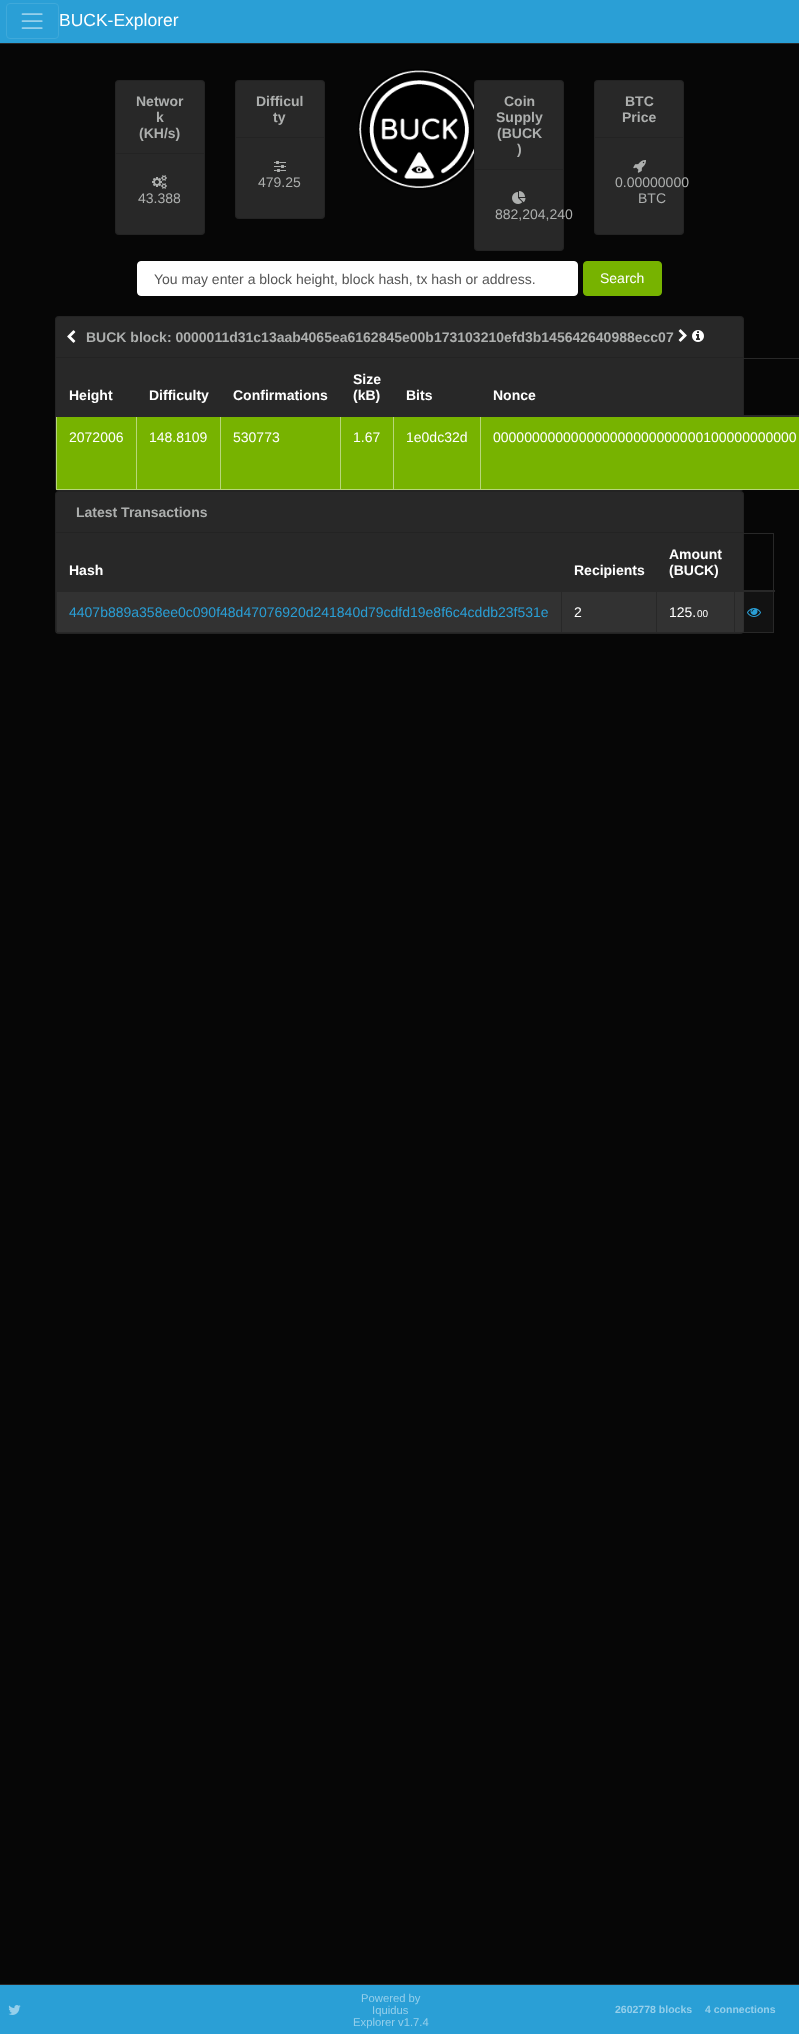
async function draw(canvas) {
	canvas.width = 799;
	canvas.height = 2034;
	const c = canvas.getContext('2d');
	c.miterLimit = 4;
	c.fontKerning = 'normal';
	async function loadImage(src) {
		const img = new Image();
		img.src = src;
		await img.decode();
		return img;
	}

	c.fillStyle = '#060606';
	c.fillRect(0, 0, 799, 2034);
	c.fillStyle = '#2a9fd6';
	c.fillRect(0, 0, 799, 43);
	c.fillStyle = '#282828';
	c.fillRect(0, 43, 799, 1);
	c.beginPath();
	c.roundRect(6.5, 3.5, 52, 35, 3.5);
	c.strokeStyle = '#3fa9da';
	c.stroke();
	c.drawImage(await loadImage('img1.png'), 21, 13, 22, 16);
	c.font = '17.5px Liberation Sans';
	c.fillStyle = '#fff';
	c.fillText('BUCK-Explorer', 59, 26);
	c.fillStyle = '#282828';
	c.beginPath();
	c.roundRect(115, 80, 90, 155, 4);
	c.fill();
	c.beginPath();
	c.roundRect(115.5, 80.5, 89, 154, 3.5);
	c.strokeStyle = '#0000001f';
	c.stroke();
	c.fillStyle = '#232323';
	c.fillRect(116, 153, 88, 1);
	c.font = 'bold 14px Liberation Sans';
	c.fillStyle = '#adafae';
	for (const [text, x, y] of [
		['Networ', 136, 106],
		['k', 156, 122],
		['(KH/s)', 139, 138],
	]) {
		c.fillText(text, x, y);
	}
	c.drawImage(await loadImage('img2.png'), 152, 175, 15, 14);
	c.font = '14px Liberation Sans';
	c.fillText('43.388', 138, 203);
	c.fillStyle = '#282828';
	c.beginPath();
	c.roundRect(235, 80, 90, 139, 4);
	c.fill();
	c.beginPath();
	c.roundRect(235.5, 80.5, 89, 138, 3.5);
	c.stroke();
	c.fillStyle = '#232323';
	c.fillRect(236, 137, 88, 1);
	c.font = 'bold 14px Liberation Sans';
	c.fillStyle = '#adafae';
	c.fillText('Difficul', 256, 106);
	c.fillText('ty', 273, 122);
	c.drawImage(await loadImage('img3.png'), 274, 161, 12, 11);
	c.font = '14px Liberation Sans';
	c.fillText('479.25', 258, 187);
	c.drawImage(await loadImage('img4.png'), 358, 69, 116, 121);
	c.fillStyle = '#282828';
	c.beginPath();
	c.roundRect(474, 80, 90, 171, 4);
	c.fill();
	c.beginPath();
	c.roundRect(474.5, 80.5, 89, 170, 3.5);
	c.stroke();
	c.fillStyle = '#232323';
	c.fillRect(475, 169, 88, 1);
	c.font = 'bold 14px Liberation Sans';
	c.fillStyle = '#adafae';
	for (const [text, x, y] of [
		['Coin', 504, 106],
		['Supply', 496, 122],
		['(BUCK', 497, 138],
		[')', 517, 154],
	]) {
		c.fillText(text, x, y);
	}
	c.drawImage(await loadImage('img5.png'), 512, 191, 14, 13);
	c.font = '14px Liberation Sans';
	c.fillText('882,204,240', 495, 219);
	c.fillStyle = '#282828';
	c.beginPath();
	c.roundRect(594, 80, 90, 155, 4);
	c.fill();
	c.beginPath();
	c.roundRect(594.5, 80.5, 89, 154, 3.5);
	c.stroke();
	c.fillStyle = '#232323';
	c.fillRect(595, 137, 88, 1);
	c.font = 'bold 14px Liberation Sans';
	c.fillStyle = '#adafae';
	c.fillText('BTC', 625, 106);
	c.fillText('Price', 622, 122);
	c.drawImage(await loadImage('img6.png'), 633, 160, 13, 13);
	c.font = '14px Liberation Sans';
	c.fillText('0.00000000', 615, 187);
	c.fillText('BTC', 638, 203);
	c.fillStyle = '#fff';
	c.beginPath();
	c.roundRect(137.5, 261.5, 440, 34, 3.5);
	c.fill();
	c.strokeStyle = '#fff';
	c.stroke();
	c.fillStyle = '#555';
	c.fillText('You may enter a block height, block hash, tx hash or address.', 154, 284);
	c.fillStyle = '#77b300';
	c.beginPath();
	c.roundRect(583.5, 261.5, 78, 34, 3.5);
	c.fill();
	c.strokeStyle = '#77b300';
	c.stroke();
	c.fillStyle = '#fff';
	c.fillText('Search', 600, 283);
	c.fillStyle = '#282828';
	c.beginPath();
	c.roundRect(55, 316, 689, 175, 4);
	c.fill();
	c.beginPath();
	c.roundRect(55.5, 316.5, 688, 174, 3.5);
	c.strokeStyle = '#0000001f';
	c.stroke();
	c.fillStyle = '#232323';
	c.fillRect(56, 357, 687, 1);
	c.drawImage(await loadImage('img7.png'), 67, 330, 9, 13);
	c.font = 'bold 14px Liberation Sans';
	c.fillStyle = '#adafae';
	c.fillText('BUCK block: 0000011d31c13aab4065ea6162845e00b173103210efd3b145642640988ecc07', 86, 342);
	c.drawImage(await loadImage('img8.png'), 678, 329, 9, 13);
	c.drawImage(await loadImage('img9.png'), 692, 330, 12, 12);
	for (const [x, y, w, h, color] of [
		[743, 358, 56, 1, '#282828'],
		[480, 489, 319, 1, '#b8d77a'],
		[57, 417, 742, 72, '#77b300'],
		[480, 416, 1, 74, '#b8d77a'],
		[393, 489, 88, 1, '#b8d77a'],
		[393, 416, 1, 74, '#b8d77a'],
		[340, 489, 54, 1, '#b8d77a'],
		[340, 416, 1, 74, '#b8d77a'],
		[220, 489, 121, 1, '#b8d77a'],
		[220, 416, 1, 74, '#b8d77a'],
		[136, 489, 85, 1, '#b8d77a'],
		[136, 416, 1, 74, '#b8d77a'],
		[56, 489, 81, 1, '#b8d77a'],
		[56, 416, 1, 74, '#b8d77a'],
		[56, 416, 1, 1, '#282828'],
	]) {
		c.fillStyle = color;
		c.fillRect(x, y, w, h);
	}
	c.fillStyle = '#fff';
	c.fillText('Height', 69, 400);
	c.fillStyle = '#282828';
	c.fillRect(136, 416, 1, 1);
	c.fillStyle = '#fff';
	c.fillText('Difficulty', 149, 400);
	c.fillStyle = '#282828';
	c.fillRect(220, 416, 1, 1);
	c.fillStyle = '#fff';
	c.fillText('Confirmations', 233, 400);
	c.fillStyle = '#282828';
	c.fillRect(340, 416, 1, 1);
	c.fillStyle = '#fff';
	c.fillText('Size', 353, 384);
	c.fillText('(kB)', 353, 400);
	c.fillStyle = '#282828';
	c.fillRect(393, 416, 1, 1);
	c.fillStyle = '#fff';
	c.fillText('Bits', 406, 400);
	c.fillStyle = '#282828';
	c.fillRect(480, 416, 1, 1);
	c.fillRect(743, 415, 56, 2);
	c.fillStyle = '#fff';
	c.fillText('Nonce', 493, 400);
	c.font = '14px Liberation Sans';
	for (const [text, x, y] of [
		['2072006', 69, 442],
		['148.8109', 149, 442],
		['530773', 233, 442],
		['1.67', 353, 442],
		['1e0dc32d', 406, 442],
		['000000000000000000000000000100000000000', 493, 442],
	]) {
		c.fillText(text, x, y);
	}
	c.fillStyle = '#282828';
	c.beginPath();
	c.roundRect(55, 491, 689, 143, 4);
	c.fill();
	c.beginPath();
	c.roundRect(55.5, 491.5, 688, 142, 3.5);
	c.stroke();
	c.fillStyle = '#232323';
	c.fillRect(56, 532, 687, 1);
	c.font = 'bold 14px Liberation Sans';
	c.fillStyle = '#adafae';
	c.fillText('Latest Transactions', 76, 517);
	for (const [x, y, w, h, color] of [
		[743, 533, 31, 1, '#282828'],
		[773, 533, 1, 100, '#282828'],
		[56, 632, 718, 1, '#282828'],
	]) {
		c.fillStyle = color;
		c.fillRect(x, y, w, h);
	}
	c.fillStyle = '#fff';
	for (const [text, x, y] of [
		['Hash', 69, 575],
		['Recipients', 574, 575],
		['Amount', 669, 559],
		['(BUCK)', 669, 575],
	]) {
		c.fillText(text, x, y);
	}
	c.fillStyle = '#282828';
	c.fillRect(743, 590, 32, 2);
	c.fillStyle = '#ffffff0d';
	c.fillRect(57, 592, 716, 40);
	c.font = '14px Liberation Sans';
	c.fillStyle = '#2a9fd6';
	c.fillText('4407b889a358ee0c090f48d47076920d241840d79cdfd19e8f6c4cddb23f531e', 69, 617);
	c.fillStyle = '#282828';
	c.fillRect(561, 591, 1, 42);
	c.fillStyle = '#fff';
	c.fillText('2', 574, 617);
	c.fillStyle = '#282828';
	c.fillRect(656, 591, 1, 42);
	c.fillStyle = '#fff';
	c.fillText('125.', 669, 617);
	c.font = '10px Liberation Sans';
	c.fillText('00', 697, 617);
	c.fillStyle = '#282828';
	c.fillRect(734, 591, 1, 42);
	c.drawImage(await loadImage('img10.png'), 747, 608, 14, 9);
	c.fillStyle = '#2a9fd6';
	c.fillRect(0, 1985, 799, 49);
	c.fillStyle = '#282828';
	c.fillRect(0, 1984, 799, 1);
	c.drawImage(await loadImage('img11.png'), 8, 2005, 13, 10);
	c.font = '11.25px Liberation Sans';
	c.fillStyle = '#95cfeb';
	for (const [text, x, y] of [
		['Powered by', 361, 2002],
		['Iquidus', 372, 2014],
		['Explorer v1.7.4', 353, 2026],
	]) {
		c.fillText(text, x, y);
	}
	c.font = 'bold 10.5px Liberation Sans';
	c.fillText('2602778 blocks', 615, 2013);
	c.fillText('4 connections', 705, 2013);
}

draw(document.querySelector('canvas'));
